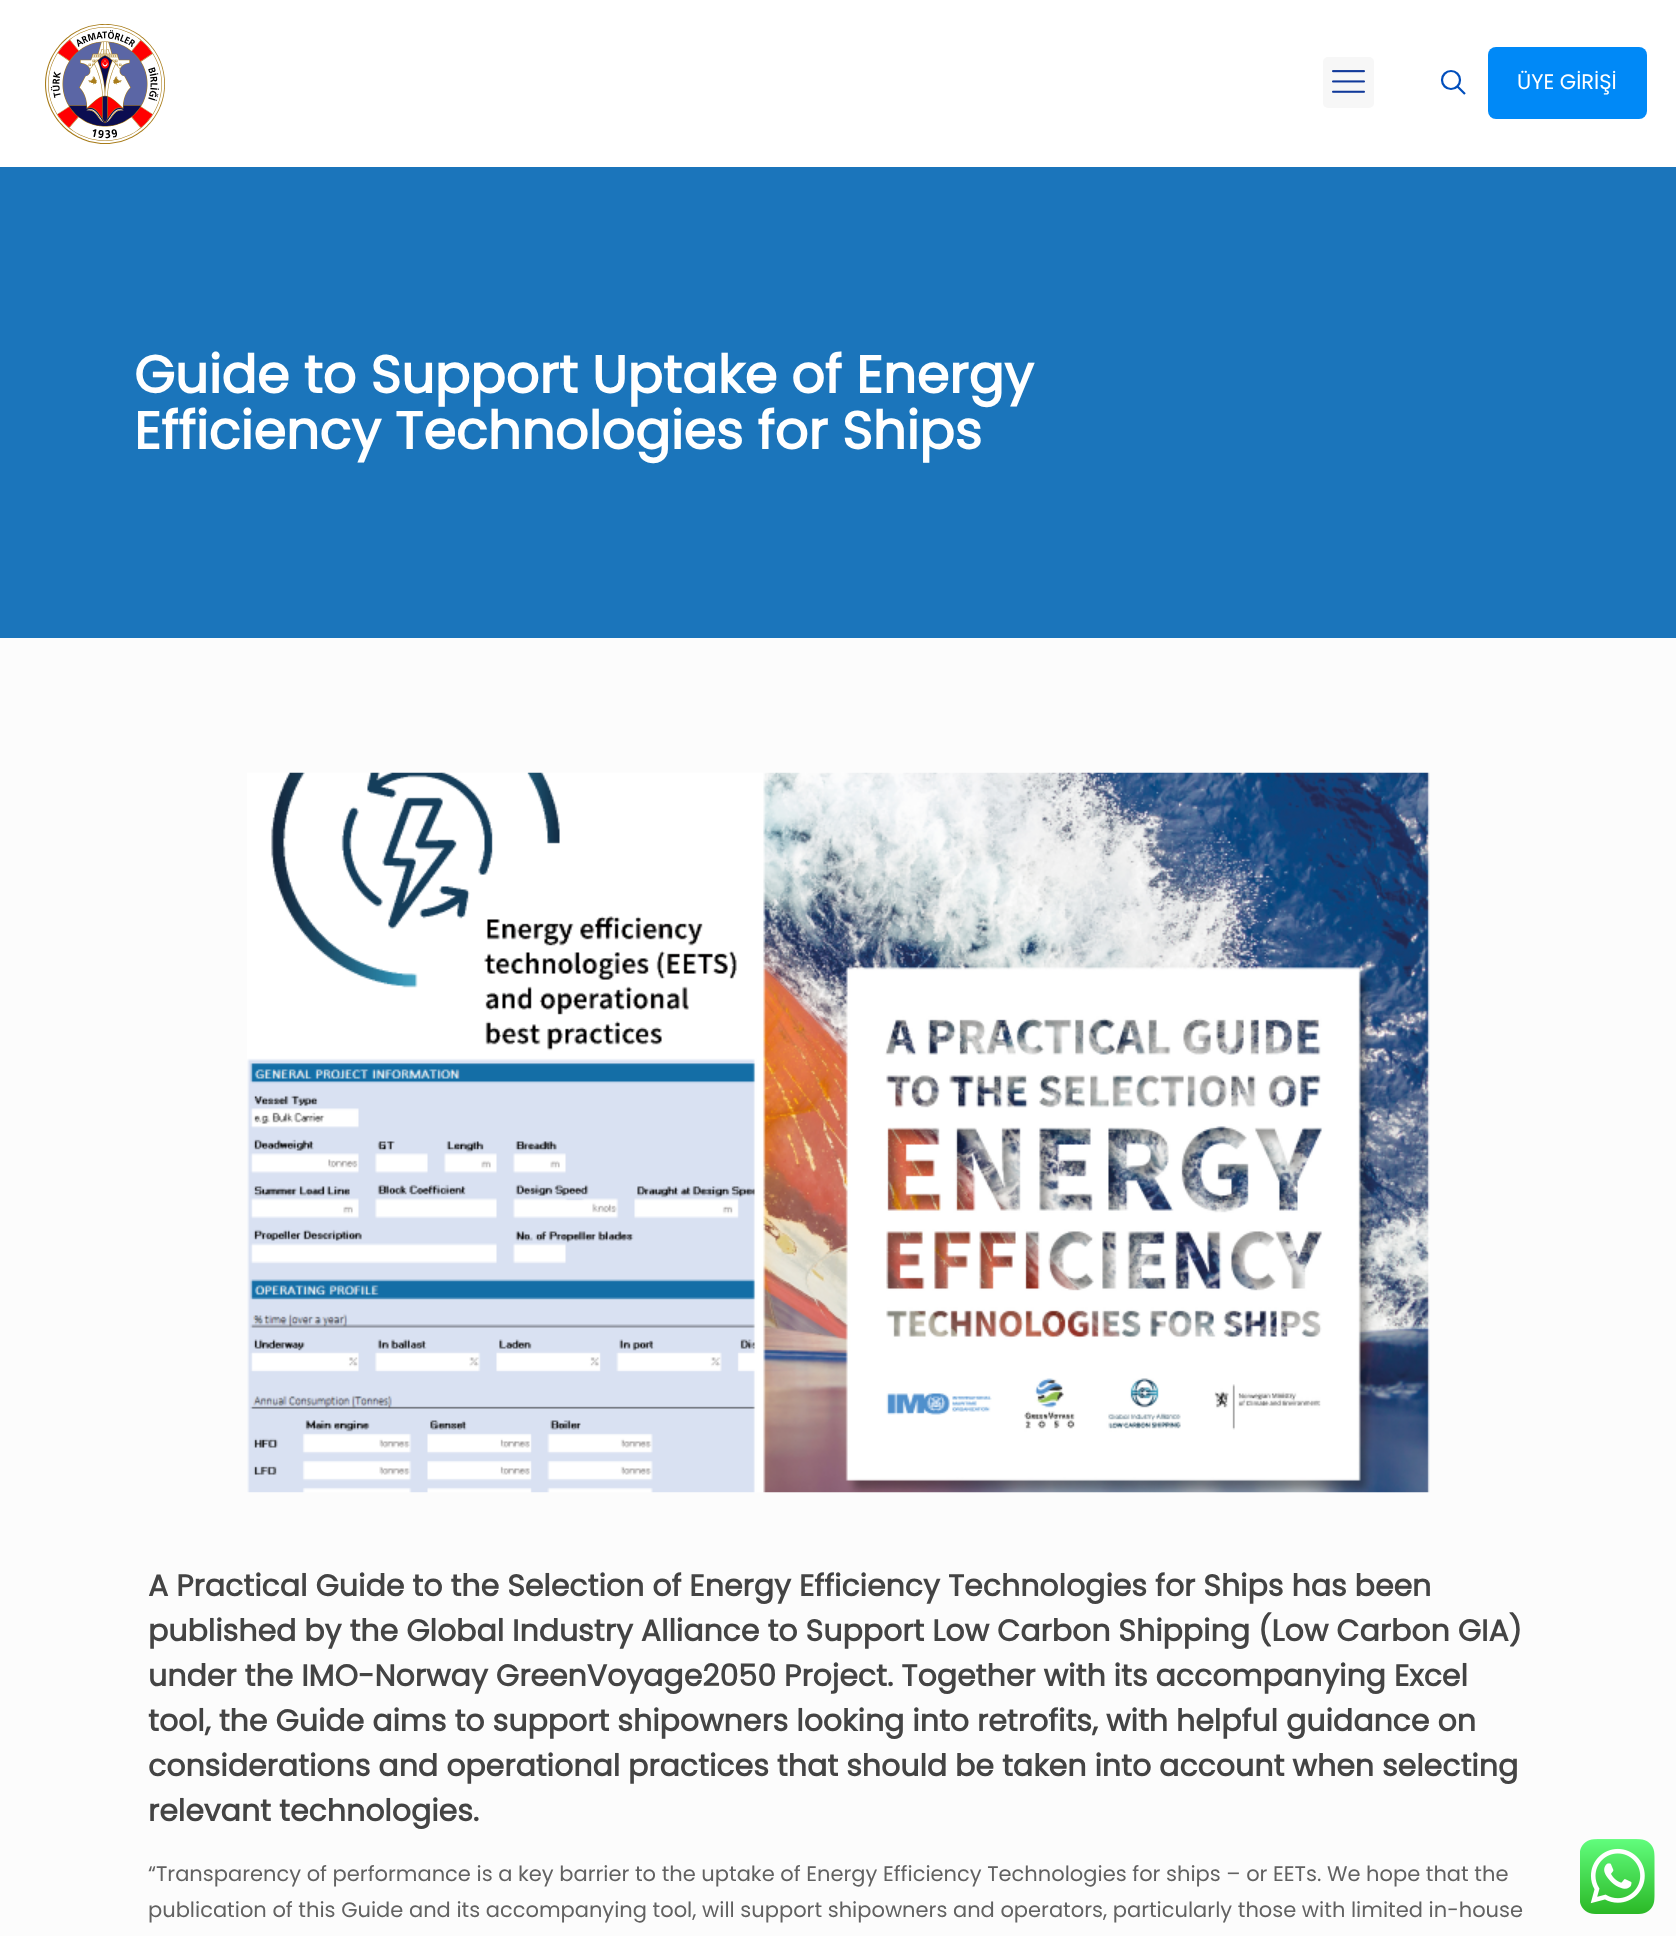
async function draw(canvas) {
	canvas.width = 1676;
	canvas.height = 1936;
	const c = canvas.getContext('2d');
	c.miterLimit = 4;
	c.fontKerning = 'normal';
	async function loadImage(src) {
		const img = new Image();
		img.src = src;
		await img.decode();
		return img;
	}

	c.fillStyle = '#fcfcfc';
	c.fillRect(0, 0, 1676, 1936);
	c.fillStyle = '#fff';
	c.fillRect(0, 0, 1676, 167);
	c.drawImage(await loadImage('img1.png'), 45, 24, 120, 120);
	c.fillStyle = '#f7f7f7';
	c.beginPath();
	c.roundRect(1323, 57, 51, 51, 5);
	c.fill();
	c.drawImage(await loadImage('img2.png'), 1332, 70, 33, 23);
	c.beginPath();
	c.arc(1451, 80, 9, 0, 2 * Math.PI);
	c.strokeStyle = '#004ebc';
	c.lineWidth = 2.2;
	c.stroke();
	c.beginPath();
	c.moveTo(1457.5, 86.5);
	c.lineTo(1465, 94);
	c.stroke();
	c.fillStyle = '#0089f7';
	c.beginPath();
	c.roundRect(1488, 47, 159, 72, 8);
	c.fill();
	c.font = '21px Poppins';
	c.fillStyle = '#fff';
	c.fillText('ÜYE GİRİŞİ', 1517, 89);
	c.fillStyle = '#1b75bb';
	c.fillRect(0, 167, 1676, 471);
	c.font = 'bold 52.5px Poppins';
	c.fillStyle = '#fff';
	c.fillText('Guide to Support Uptake of Energy', 134, 393);
	c.fillText('Efficiency Technologies for Ships', 134, 449);
	c.drawImage(await loadImage('img3.png'), 247, 772, 1183, 721);
	c.font = 'bold 30px Poppins';
	c.fillStyle = '#444';
	for (const [text, x, y] of [
		['A Practical Guide to the Selection of Energy Efficiency Technologies for Ships has been', 148, 1596],
		['published by the Global Industry Alliance to Support Low Carbon Shipping (Low Carbon GIA)', 148, 1641],
		['under the IMO-Norway GreenVoyage2050 Project. Together with its accompanying Excel', 148, 1686],
		['tool, the Guide aims to support shipowners looking into retrofits, with helpful guidance on', 148, 1731],
		['considerations and operational practices that should be taken into account when selecting', 148, 1776],
		['relevant technologies.', 148, 1821],
	]) {
		c.fillText(text, x, y);
	}
	c.font = '21px Poppins';
	c.fillStyle = '#626262';
	c.fillText('“Transparency of performance is a key barrier to the uptake of Energy Efficiency Technologies for ships – or EETs. We hope that the', 148, 1881);
	c.fillText('publication of this Guide and its accompanying tool, will support shipowners and operators, particularly those with limited in-house', 148, 1917);
	c.drawImage(await loadImage('img4.png'), 1580, 1839, 75, 75);
}

draw(document.querySelector('canvas'));
